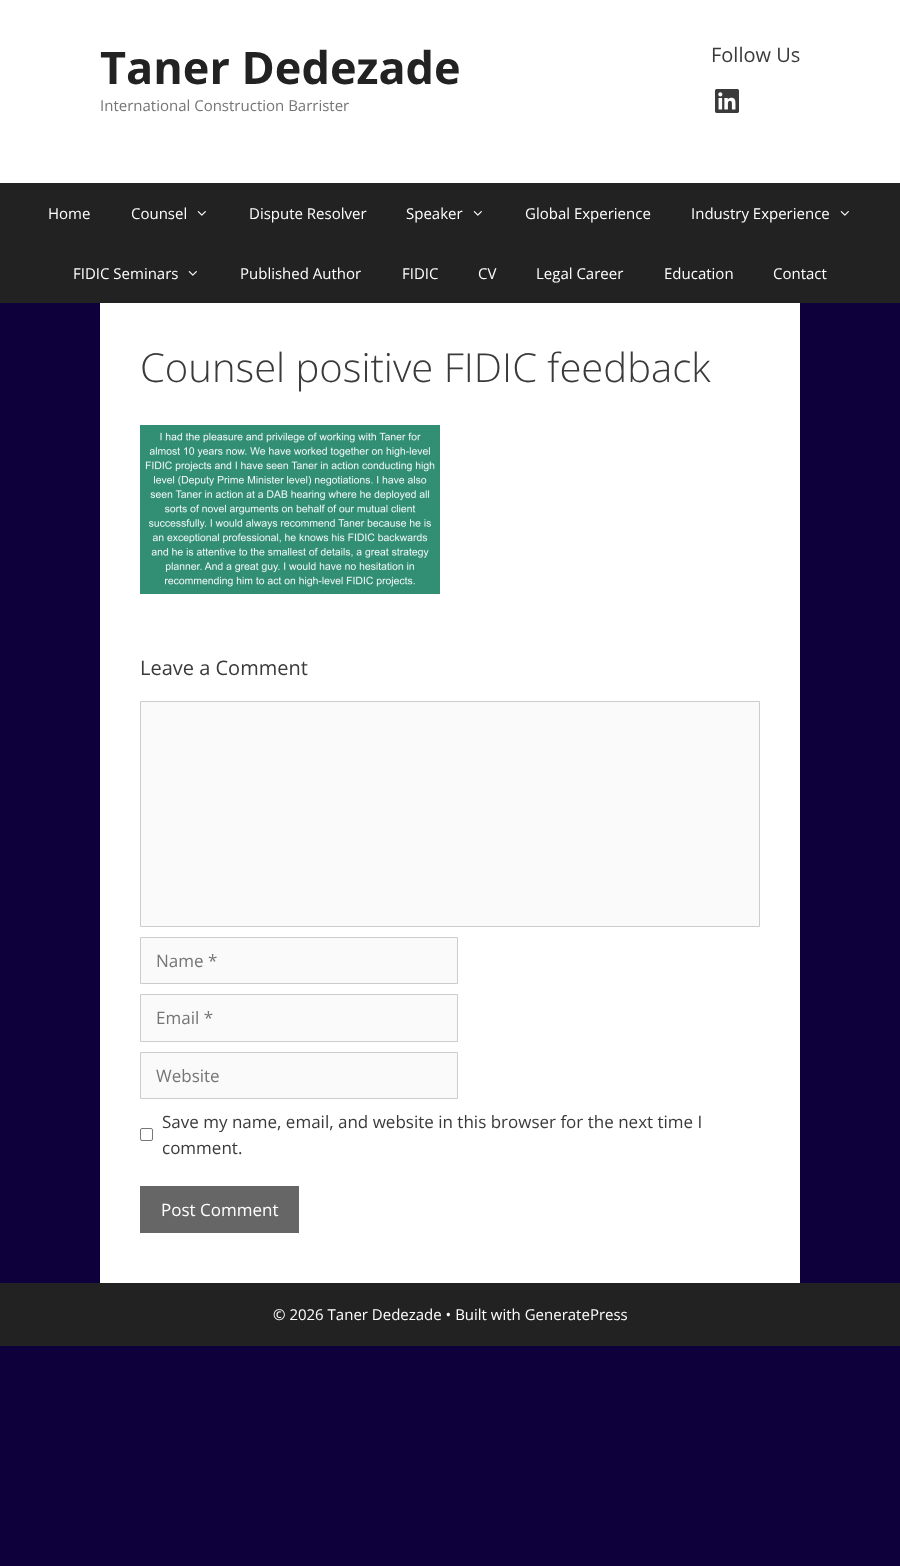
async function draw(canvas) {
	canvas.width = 900;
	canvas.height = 1566;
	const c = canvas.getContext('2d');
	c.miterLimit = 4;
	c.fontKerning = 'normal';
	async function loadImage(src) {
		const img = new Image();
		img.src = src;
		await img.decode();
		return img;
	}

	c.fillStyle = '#0e003a';
	c.fillRect(0, 0, 900, 1566);
	c.fillStyle = '#fff';
	c.fillRect(0, 0, 900, 183);
	c.font = 'bold 45px Open Sans';
	c.fillStyle = '#222';
	c.fillText('Taner Dedezade', 100, 84);
	c.font = '15px Open Sans';
	c.fillStyle = '#757575';
	c.fillText('International Construction Barrister', 100, 111);
	c.font = '20px Open Sans';
	c.fillStyle = '#3a3a3a';
	c.fillText('Follow Us', 711, 62);
	c.drawImage(await loadImage('img1.png'), 715, 89, 24, 24);
	c.fillStyle = '#222';
	c.fillRect(0, 183, 900, 120);
	c.font = '15px Open Sans';
	c.fillStyle = '#fff';
	c.fillText('Home', 48, 219);
	c.fillText('Counsel', 131, 219);
	c.drawImage(await loadImage('img2.png'), 197, 211, 9, 5);
	c.fillText('Dispute Resolver', 249, 219);
	c.fillText('Speaker', 406, 219);
	c.drawImage(await loadImage('img2.png'), 473, 211, 9, 5);
	c.fillText('Global Experience', 525, 219);
	c.fillText('Industry Experience', 691, 219);
	c.drawImage(await loadImage('img2.png'), 840, 211, 9, 5);
	c.fillText('FIDIC Seminars', 73, 279);
	c.drawImage(await loadImage('img2.png'), 188, 271, 9, 5);
	for (const [text, x, y] of [
		['Published Author', 240, 279],
		['FIDIC', 402, 279],
		['CV', 478, 279],
		['Legal Career', 536, 279],
		['Education', 664, 279],
		['Contact', 773, 279],
	]) {
		c.fillText(text, x, y);
	}
	c.fillRect(100, 303, 700, 980);
	c.font = '300 40px Open Sans';
	c.fillStyle = '#3a3a3a';
	c.fillText('Counsel positive FIDIC feedback', 140, 382);
	c.drawImage(await loadImage('img3.png'), 140, 425, 300, 169);
	c.font = '20px Open Sans';
	c.fillText('Leave a Comment', 140, 675);
	c.fillStyle = '#fafafa';
	c.beginPath();
	c.rect(140.5, 701.5, 619, 225);
	c.fill();
	c.strokeStyle = '#ccc';
	c.stroke();
	c.beginPath();
	c.rect(140.5, 937.5, 317, 46);
	c.fill();
	c.stroke();
	c.font = '17px Open Sans';
	c.fillStyle = '#757575';
	c.fillText('Name *', 156, 967);
	c.fillStyle = '#fafafa';
	c.beginPath();
	c.rect(140.5, 994.5, 317, 47);
	c.fill();
	c.stroke();
	c.fillStyle = '#757575';
	c.fillText('Email *', 156, 1024);
	c.fillStyle = '#fafafa';
	c.beginPath();
	c.rect(140.5, 1052.5, 317, 46);
	c.fill();
	c.stroke();
	c.fillStyle = '#757575';
	c.fillText('Website', 156, 1082);
	c.beginPath();
	c.roundRect(140.5, 1128.5, 12, 12, 1.5);
	c.strokeStyle = '#767676';
	c.stroke();
	c.fillStyle = '#3a3a3a';
	c.fillText('Save my name, email, and website in this browser for the next time I', 162, 1128);
	c.fillText('comment.', 162, 1154);
	c.fillStyle = '#666';
	c.fillRect(140, 1186, 159, 47);
	c.fillStyle = '#fff';
	c.fillText('Post Comment', 161, 1216);
	c.fillStyle = '#222';
	c.fillRect(0, 1283, 900, 63);
	c.font = '15px Open Sans';
	c.fillStyle = '#fff';
	c.fillText('© 2026 Taner Dedezade • Built with GeneratePress', 273, 1320);
}

draw(document.querySelector('canvas'));
